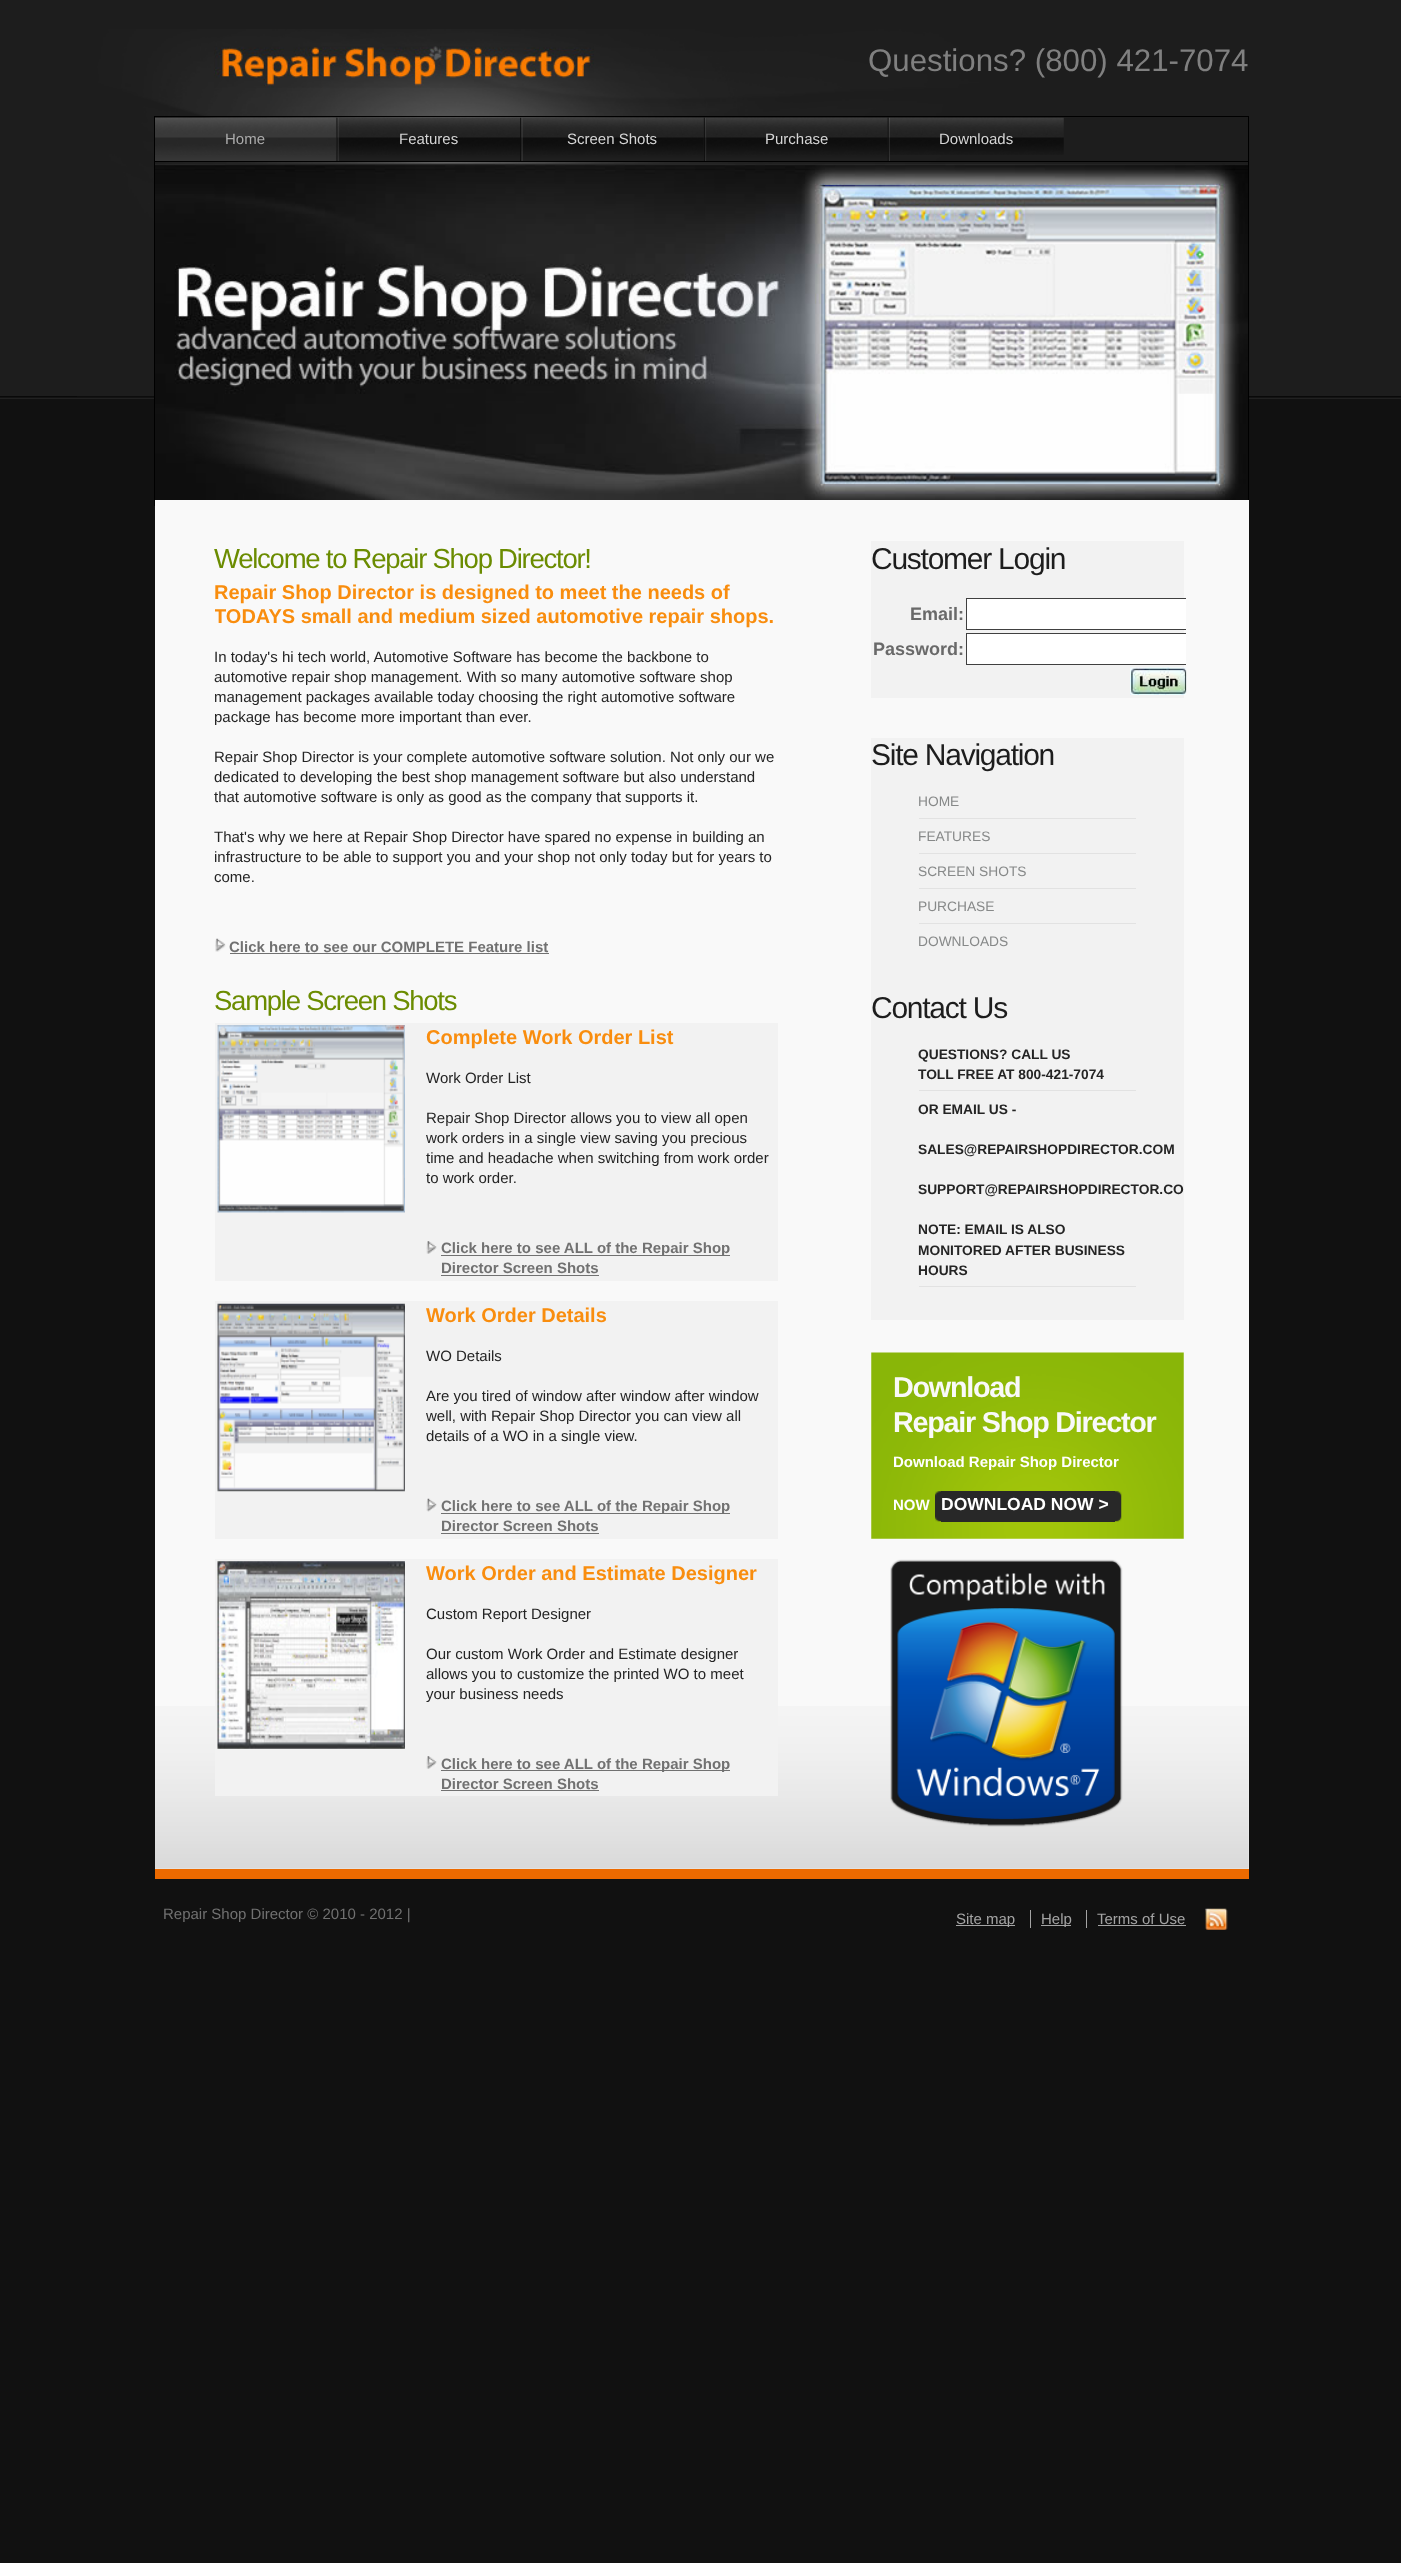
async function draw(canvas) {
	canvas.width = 1401;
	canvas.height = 2563;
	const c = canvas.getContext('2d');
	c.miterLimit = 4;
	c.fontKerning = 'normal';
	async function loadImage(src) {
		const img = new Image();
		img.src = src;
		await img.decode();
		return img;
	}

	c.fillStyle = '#111';
	c.fillRect(0, 0, 1401, 2563);
	c.drawImage(await loadImage('img1.png'), 0, 0, 1401, 399);
	c.drawImage(await loadImage('img2.png'), 77, 29, 944, 368);
	c.drawImage(await loadImage('img3.png'), 214, 46, 380, 42);
	c.font = '31.25px Liberation Sans';
	c.fillStyle = '#808080';
	c.fillText('Questions? (800) 421-7074', 868, 71);
	c.drawImage(await loadImage('img4.png'), 155, 163, 1093, 337);
	c.strokeStyle = '#000';
	c.strokeRect(154.5, 116.5, 1094, 389);
	c.fillStyle = '#000';
	c.fillRect(155, 161, 1093, 1);
	c.drawImage(await loadImage('img5.png'), 336, 117, 3, 44);
	c.drawImage(await loadImage('img6.png'), 155, 117, 182, 44);
	c.font = '15px Liberation Sans';
	c.fillStyle = '#ababab';
	c.fillText('Home', 225, 144);
	c.drawImage(await loadImage('img7.png'), 520, 117, 3, 44);
	c.drawImage(await loadImage('img8.png'), 338, 117, 182, 44);
	c.fillStyle = '#d5d5d5';
	c.fillText('Features', 399, 144);
	c.drawImage(await loadImage('img9.png'), 703, 117, 4, 44);
	c.drawImage(await loadImage('img10.png'), 522, 117, 182, 44);
	c.fillText('Screen Shots', 567, 144);
	c.drawImage(await loadImage('img11.png'), 887, 117, 3, 44);
	c.drawImage(await loadImage('img12.png'), 706, 117, 182, 44);
	c.fillText('Purchase', 765, 144);
	c.drawImage(await loadImage('img13.png'), 890, 117, 174, 38);
	c.fillText('Downloads', 939, 144);
	c.fillStyle = '#f9f9f9';
	c.fillRect(155, 500, 1094, 1369);
	c.drawImage(await loadImage('img14.png'), 155, 1706, 1094, 163);
	c.fillStyle = '#ec6a00';
	c.fillRect(155, 1869, 1094, 10);
	c.letterSpacing = '-1.25px';
	c.font = '27.5px Liberation Sans';
	c.fillStyle = '#6b8c01';
	c.fillText('Welcome to Repair Shop Director!', 214, 568);
	c.letterSpacing = '0px';
	c.font = 'bold 20px Liberation Sans';
	c.fillStyle = '#f98d0e';
	c.fillText('Repair Shop Director is designed to meet the needs of', 214, 599);
	c.save();
	c.beginPath();
	c.rect(215, 541, 971, 1287);
	c.clip();
	c.fillText('TODAYS small and medium sized automotive repair shops.', 214, 623);
	c.restore();
	c.font = '15px Liberation Sans';
	c.fillStyle = '#242424';
	for (const [text, x, y] of [
		['In today\'s hi tech world, Automotive Software has become the backbone to', 214, 662],
		['automotive repair shop management. With so many automotive software shop', 214, 682],
		['management packages available today choosing the right automotive software', 214, 702],
		['package has become more important than ever.', 214, 722],
		['Repair Shop Director is your complete automotive software solution. Not only our we', 214, 762],
		['dedicated to developing the best shop management software but also understand', 214, 782],
		['that automotive software is only as good as the company that supports it.', 214, 802],
		['That\'s why we here at Repair Shop Director have spared no expense in building an', 214, 842],
		['infrastructure to be able to support you and your shop not only today but for years to', 214, 862],
		['come.', 214, 882],
	]) {
		c.fillText(text, x, y);
	}
	c.drawImage(await loadImage('img15.png'), 215, 938, 11, 14);
	c.font = 'bold 15px Liberation Sans';
	c.fillStyle = '#717171';
	c.fillText('Click here to see our COMPLETE Feature list', 229, 952);
	c.fillRect(230, 953, 319, 1);
	c.letterSpacing = '-1.25px';
	c.font = '27.5px Liberation Sans';
	c.fillStyle = '#6b8c01';
	c.fillText('Sample Screen Shots', 214, 1010);
	c.fillStyle = '#f2f2f2';
	c.fillRect(215, 1023, 563, 258);
	c.drawImage(await loadImage('img16.png'), 217, 1025, 188, 188);
	c.letterSpacing = '0px';
	c.font = 'bold 20px Liberation Sans';
	c.fillStyle = '#f98d0e';
	c.fillText('Complete Work Order List', 426, 1044);
	c.font = '15px Liberation Sans';
	c.fillStyle = '#242424';
	for (const [text, x, y] of [
		['Work Order List', 426, 1083],
		['Repair Shop Director allows you to view all open', 426, 1123],
		['work orders in a single view saving you precious', 426, 1143],
		['time and headache when switching from work order', 426, 1163],
		['to work order.', 426, 1183],
	]) {
		c.fillText(text, x, y);
	}
	c.drawImage(await loadImage('img17.png'), 426, 1241, 11, 13);
	c.fillStyle = '#717171';
	c.fillRect(441, 1255, 289, 1);
	c.font = 'bold 15px Liberation Sans';
	c.fillText('Click here to see ALL of the Repair Shop', 441, 1253);
	c.fillText('Director Screen Shots', 441, 1273);
	c.fillRect(441, 1275, 158, 1);
	c.fillStyle = '#f2f2f2';
	c.fillRect(215, 1301, 563, 238);
	c.drawImage(await loadImage('img18.png'), 217, 1303, 188, 189);
	c.font = 'bold 20px Liberation Sans';
	c.fillStyle = '#f98d0e';
	c.fillText('Work Order Details', 426, 1322);
	c.font = '15px Liberation Sans';
	c.fillStyle = '#242424';
	for (const [text, x, y] of [
		['WO Details', 426, 1361],
		['Are you tired of window after window after window', 426, 1401],
		['well, with Repair Shop Director you can view all', 426, 1421],
		['details of a WO in a single view.', 426, 1441],
	]) {
		c.fillText(text, x, y);
	}
	c.drawImage(await loadImage('img19.png'), 426, 1498, 11, 14);
	c.fillStyle = '#717171';
	c.fillRect(441, 1513, 289, 1);
	c.font = 'bold 15px Liberation Sans';
	c.fillText('Click here to see ALL of the Repair Shop', 441, 1511);
	c.fillText('Director Screen Shots', 441, 1531);
	c.fillRect(441, 1533, 158, 1);
	c.fillStyle = '#f2f2f2';
	c.fillRect(215, 1559, 563, 237);
	c.drawImage(await loadImage('img20.png'), 217, 1561, 188, 188);
	c.font = 'bold 20px Liberation Sans';
	c.fillStyle = '#f98d0e';
	c.fillText('Work Order and Estimate Designer', 426, 1580);
	c.font = '15px Liberation Sans';
	c.fillStyle = '#242424';
	for (const [text, x, y] of [
		['Custom Report Designer', 426, 1619],
		['Our custom Work Order and Estimate designer', 426, 1659],
		['allows you to customize the printed WO to meet', 426, 1679],
		['your business needs', 426, 1699],
	]) {
		c.fillText(text, x, y);
	}
	c.drawImage(await loadImage('img17.png'), 426, 1756, 11, 13);
	c.fillStyle = '#717171';
	c.fillRect(441, 1770, 289, 1);
	c.font = 'bold 15px Liberation Sans';
	c.fillText('Click here to see ALL of the Repair Shop', 441, 1769);
	c.fillText('Director Screen Shots', 441, 1789);
	c.fillRect(441, 1790, 158, 1);
	c.fillStyle = '#f2f2f2';
	c.fillRect(871, 541, 313, 157);
	c.letterSpacing = '-1.25px';
	c.font = '30px Liberation Sans';
	c.fillStyle = '#1d1d1d';
	c.fillText('Customer Login', 871, 569);
	c.letterSpacing = '0px';
	c.font = 'bold 18px Liberation Sans';
	c.fillStyle = '#696969';
	c.fillText('Email:', 910, 620);
	c.fillStyle = '#fff';
	c.fillRect(967, 599, 219, 30);
	c.save();
	c.beginPath();
	c.rect(215, 541, 971, 1287);
	c.clip();
	c.strokeStyle = '#404040';
	c.strokeRect(966.5, 598.5, 221, 31);
	c.restore();
	c.fillStyle = '#696969';
	c.fillText('Password:', 873, 655);
	c.fillStyle = '#fff';
	c.fillRect(967, 634, 219, 30);
	c.save();
	c.beginPath();
	c.rect(215, 541, 971, 1287);
	c.clip();
	c.strokeStyle = '#404040';
	c.strokeRect(966.5, 633.5, 221, 31);
	c.restore();
	c.drawImage(await loadImage('img21.png'), 1130, 667, 57, 28);
	c.fillStyle = '#f2f2f2';
	c.fillRect(871, 738, 313, 582);
	c.letterSpacing = '-1.25px';
	c.font = '30px Liberation Sans';
	c.fillStyle = '#1d1d1d';
	c.fillText('Site Navigation', 871, 765);
	c.fillStyle = '#e2e2e2';
	c.fillRect(919, 818, 217, 1);
	c.letterSpacing = '0px';
	c.font = '13.75px Liberation Sans';
	c.fillStyle = '#878989';
	c.fillText('HOME', 918, 806);
	c.fillStyle = '#e2e2e2';
	c.fillRect(919, 853, 217, 1);
	c.fillStyle = '#878989';
	c.fillText('FEATURES', 918, 841);
	c.fillStyle = '#e2e2e2';
	c.fillRect(919, 888, 217, 1);
	c.fillStyle = '#878989';
	c.fillText('SCREEN SHOTS', 918, 876);
	c.fillStyle = '#e2e2e2';
	c.fillRect(919, 923, 217, 1);
	c.fillStyle = '#878989';
	c.fillText('PURCHASE', 918, 911);
	c.fillText('DOWNLOADS', 918, 946);
	c.letterSpacing = '-1.25px';
	c.font = '30px Liberation Sans';
	c.fillStyle = '#1d1d1d';
	c.fillText('Contact Us', 871, 1018);
	c.fillStyle = '#e2e2e2';
	c.fillRect(919, 1090, 217, 1);
	c.letterSpacing = '0px';
	c.font = 'bold 13.75px Liberation Sans';
	c.fillStyle = '#242424';
	c.fillText('QUESTIONS? CALL US', 918, 1059);
	c.fillText('TOLL FREE AT 800-421-7074', 918, 1079);
	c.fillStyle = '#e2e2e2';
	c.fillRect(919, 1286, 217, 1);
	c.fillStyle = '#242424';
	for (const [text, x, y] of [
		['OR EMAIL US -', 918, 1114],
		['SALES@REPAIRSHOPDIRECTOR.COM', 918, 1154],
		['SUPPORT@REPAIRSHOPDIRECTOR.CO', 918, 1194],
		['NOTE: EMAIL IS ALSO', 918, 1234],
		['MONITORED AFTER BUSINESS', 918, 1255],
		['HOURS', 918, 1275],
	]) {
		c.fillText(text, x, y);
	}
	c.drawImage(await loadImage('img22.png'), 871, 1352, 313, 187);
	c.letterSpacing = '-1.25px';
	c.font = 'bold 28.75px Liberation Sans';
	c.fillStyle = '#f9f9f9';
	c.fillText('Download', 893, 1397);
	c.fillText('Repair Shop Director', 893, 1432);
	c.letterSpacing = '0px';
	c.font = 'bold 15px Liberation Sans';
	c.fillStyle = '#fff';
	c.fillText('Download Repair Shop Director', 893, 1467);
	c.fillText('NOW', 893, 1510);
	c.drawImage(await loadImage('img23.png'), 935, 1491, 6, 31);
	c.drawImage(await loadImage('img24.png'), 1115, 1491, 7, 31);
	c.fillStyle = '#282828';
	c.fillRect(941, 1491, 174, 31);
	c.font = 'bold 17.5px Liberation Sans';
	c.fillStyle = '#fff';
	c.fillText('DOWNLOAD NOW >', 941, 1510);
	c.drawImage(await loadImage('img25.png'), 890, 1559, 233, 268);
	c.font = '15px Liberation Sans';
	c.fillStyle = '#717171';
	c.fillText('Repair Shop Director © 2010 - 2012 |', 163, 1919);
	c.fillStyle = '#a4a4a4';
	c.fillRect(956, 1925, 59, 1);
	c.fillText('Site map', 956, 1924);
	c.fillRect(1041, 1925, 30, 1);
	c.fillText('Help', 1041, 1924);
	c.fillRect(1030, 1910, 1, 18);
	c.fillText('Terms of Use', 1097, 1924);
	c.fillRect(1086, 1910, 1, 18);
	c.fillRect(1098, 1925, 88, 1);
	c.drawImage(await loadImage('img26.png'), 1205, 1908, 23, 22);
}

draw(document.querySelector('canvas'));
